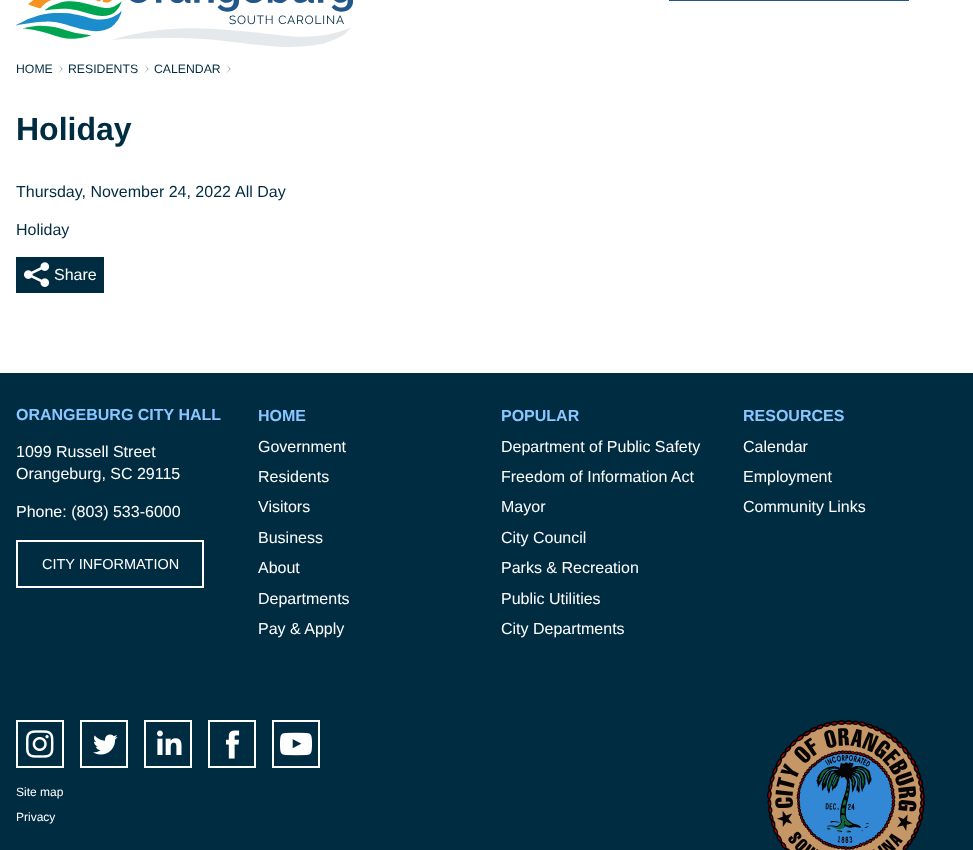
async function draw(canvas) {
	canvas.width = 973;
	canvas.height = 850;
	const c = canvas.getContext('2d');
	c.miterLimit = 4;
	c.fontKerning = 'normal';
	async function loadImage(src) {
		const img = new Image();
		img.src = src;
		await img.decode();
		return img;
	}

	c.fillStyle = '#fff';
	c.fillRect(0, 0, 973, 850);
	c.drawImage(await loadImage('img1.png'), 16, 0, 337, 47);
	c.fillStyle = '#21578a';
	c.fillRect(669, 0, 240, 1);
	c.font = '12.25px Liberation Sans';
	c.fillStyle = '#002c42';
	c.fillText('HOME', 16, 73);
	c.beginPath();
	c.moveTo(58, 73.5);
	c.lineTo(62.5, 69);
	c.lineTo(58, 64.5);
	c.lineTo(62, 69);
	c.closePath();
	c.fill();
	c.fillText('RESIDENTS', 68, 73);
	c.beginPath();
	c.moveTo(144, 73.5);
	c.lineTo(148.5, 69);
	c.lineTo(144, 64.5);
	c.lineTo(148, 69);
	c.closePath();
	c.fill();
	c.fillText('CALENDAR', 154, 73);
	c.beginPath();
	c.moveTo(226, 73.5);
	c.lineTo(230.5, 69);
	c.lineTo(226, 64.5);
	c.lineTo(230, 69);
	c.closePath();
	c.fill();
	c.font = 'bold 32px Liberation Sans';
	c.fillText('Holiday', 16, 140);
	c.font = '16px Liberation Sans';
	for (const [text, x, y] of [
		['Thursday, November 24, 2022', 16, 197],
		['All Day', 235, 197],
		['Holiday', 16, 235],
	]) {
		c.fillText(text, x, y);
	}
	c.fillRect(16, 257, 88, 36);
	c.drawImage(await loadImage('img2.png'), 24, 262, 26, 25);
	c.fillStyle = '#fff';
	c.fillText('Share', 54, 280);
	c.fillStyle = '#002c42';
	c.fillRect(0, 373, 973, 477);
	c.font = 'bold 16px Liberation Sans';
	c.fillStyle = '#8ac6ff';
	c.fillText('ORANGEBURG CITY HALL', 16, 420);
	c.font = '16px Liberation Sans';
	c.fillStyle = '#fff';
	for (const [text, x, y] of [
		['1099 Russell Street', 16, 457],
		['Orangeburg, SC 29115', 16, 479],
		['Phone: (803) 533-6000', 16, 517],
	]) {
		c.fillText(text, x, y);
	}
	c.strokeStyle = '#fff';
	c.lineWidth = 2;
	c.strokeRect(17, 541, 186, 46);
	c.font = '14.5px Liberation Sans';
	c.fillText('CITY INFORMATION', 42, 569);
	c.font = 'bold 16px Liberation Sans';
	c.fillStyle = '#8ac6ff';
	c.fillText('HOME', 258, 421);
	c.font = '16px Liberation Sans';
	c.fillStyle = '#fff';
	for (const [text, x, y] of [
		['Government', 258, 452],
		['Residents', 258, 482],
		['Visitors', 258, 512],
		['Business', 258, 543],
		['About', 258, 573],
		['Departments', 258, 604],
		['Pay & Apply', 258, 634],
	]) {
		c.fillText(text, x, y);
	}
	c.font = 'bold 16px Liberation Sans';
	c.fillStyle = '#8ac6ff';
	c.fillText('POPULAR', 501, 421);
	c.font = '16px Liberation Sans';
	c.fillStyle = '#fff';
	for (const [text, x, y] of [
		['Department of Public Safety', 501, 452],
		['Freedom of Information Act', 501, 482],
		['Mayor', 501, 512],
		['City Council', 501, 543],
		['Parks & Recreation', 501, 573],
		['Public Utilities', 501, 604],
		['City Departments', 501, 634],
	]) {
		c.fillText(text, x, y);
	}
	c.font = 'bold 16px Liberation Sans';
	c.fillStyle = '#8ac6ff';
	c.fillText('RESOURCES', 743, 421);
	c.font = '16px Liberation Sans';
	c.fillStyle = '#fff';
	for (const [text, x, y] of [
		['Calendar', 743, 452],
		['Employment', 743, 482],
		['Community Links', 743, 512],
	]) {
		c.fillText(text, x, y);
	}
	c.strokeRect(17, 721, 46, 46);
	c.drawImage(await loadImage('img3.png'), 26, 730, 28, 28);
	c.strokeRect(81, 721, 46, 46);
	c.drawImage(await loadImage('img4.png'), 93, 734, 25, 21);
	c.strokeRect(145, 721, 46, 46);
	c.drawImage(await loadImage('img5.png'), 157, 730, 25, 25);
	c.strokeRect(209, 721, 46, 46);
	c.drawImage(await loadImage('img6.png'), 226, 730, 14, 29);
	c.strokeRect(273, 721, 46, 46);
	c.drawImage(await loadImage('img7.png'), 280, 732, 32, 24);
	c.font = '12px Liberation Sans';
	c.fillText('Site map', 16, 796);
	c.fillText('Privacy', 16, 821);
	c.drawImage(await loadImage('img8.png'), 767, 720, 158, 130);
}

draw(document.querySelector('canvas'));
